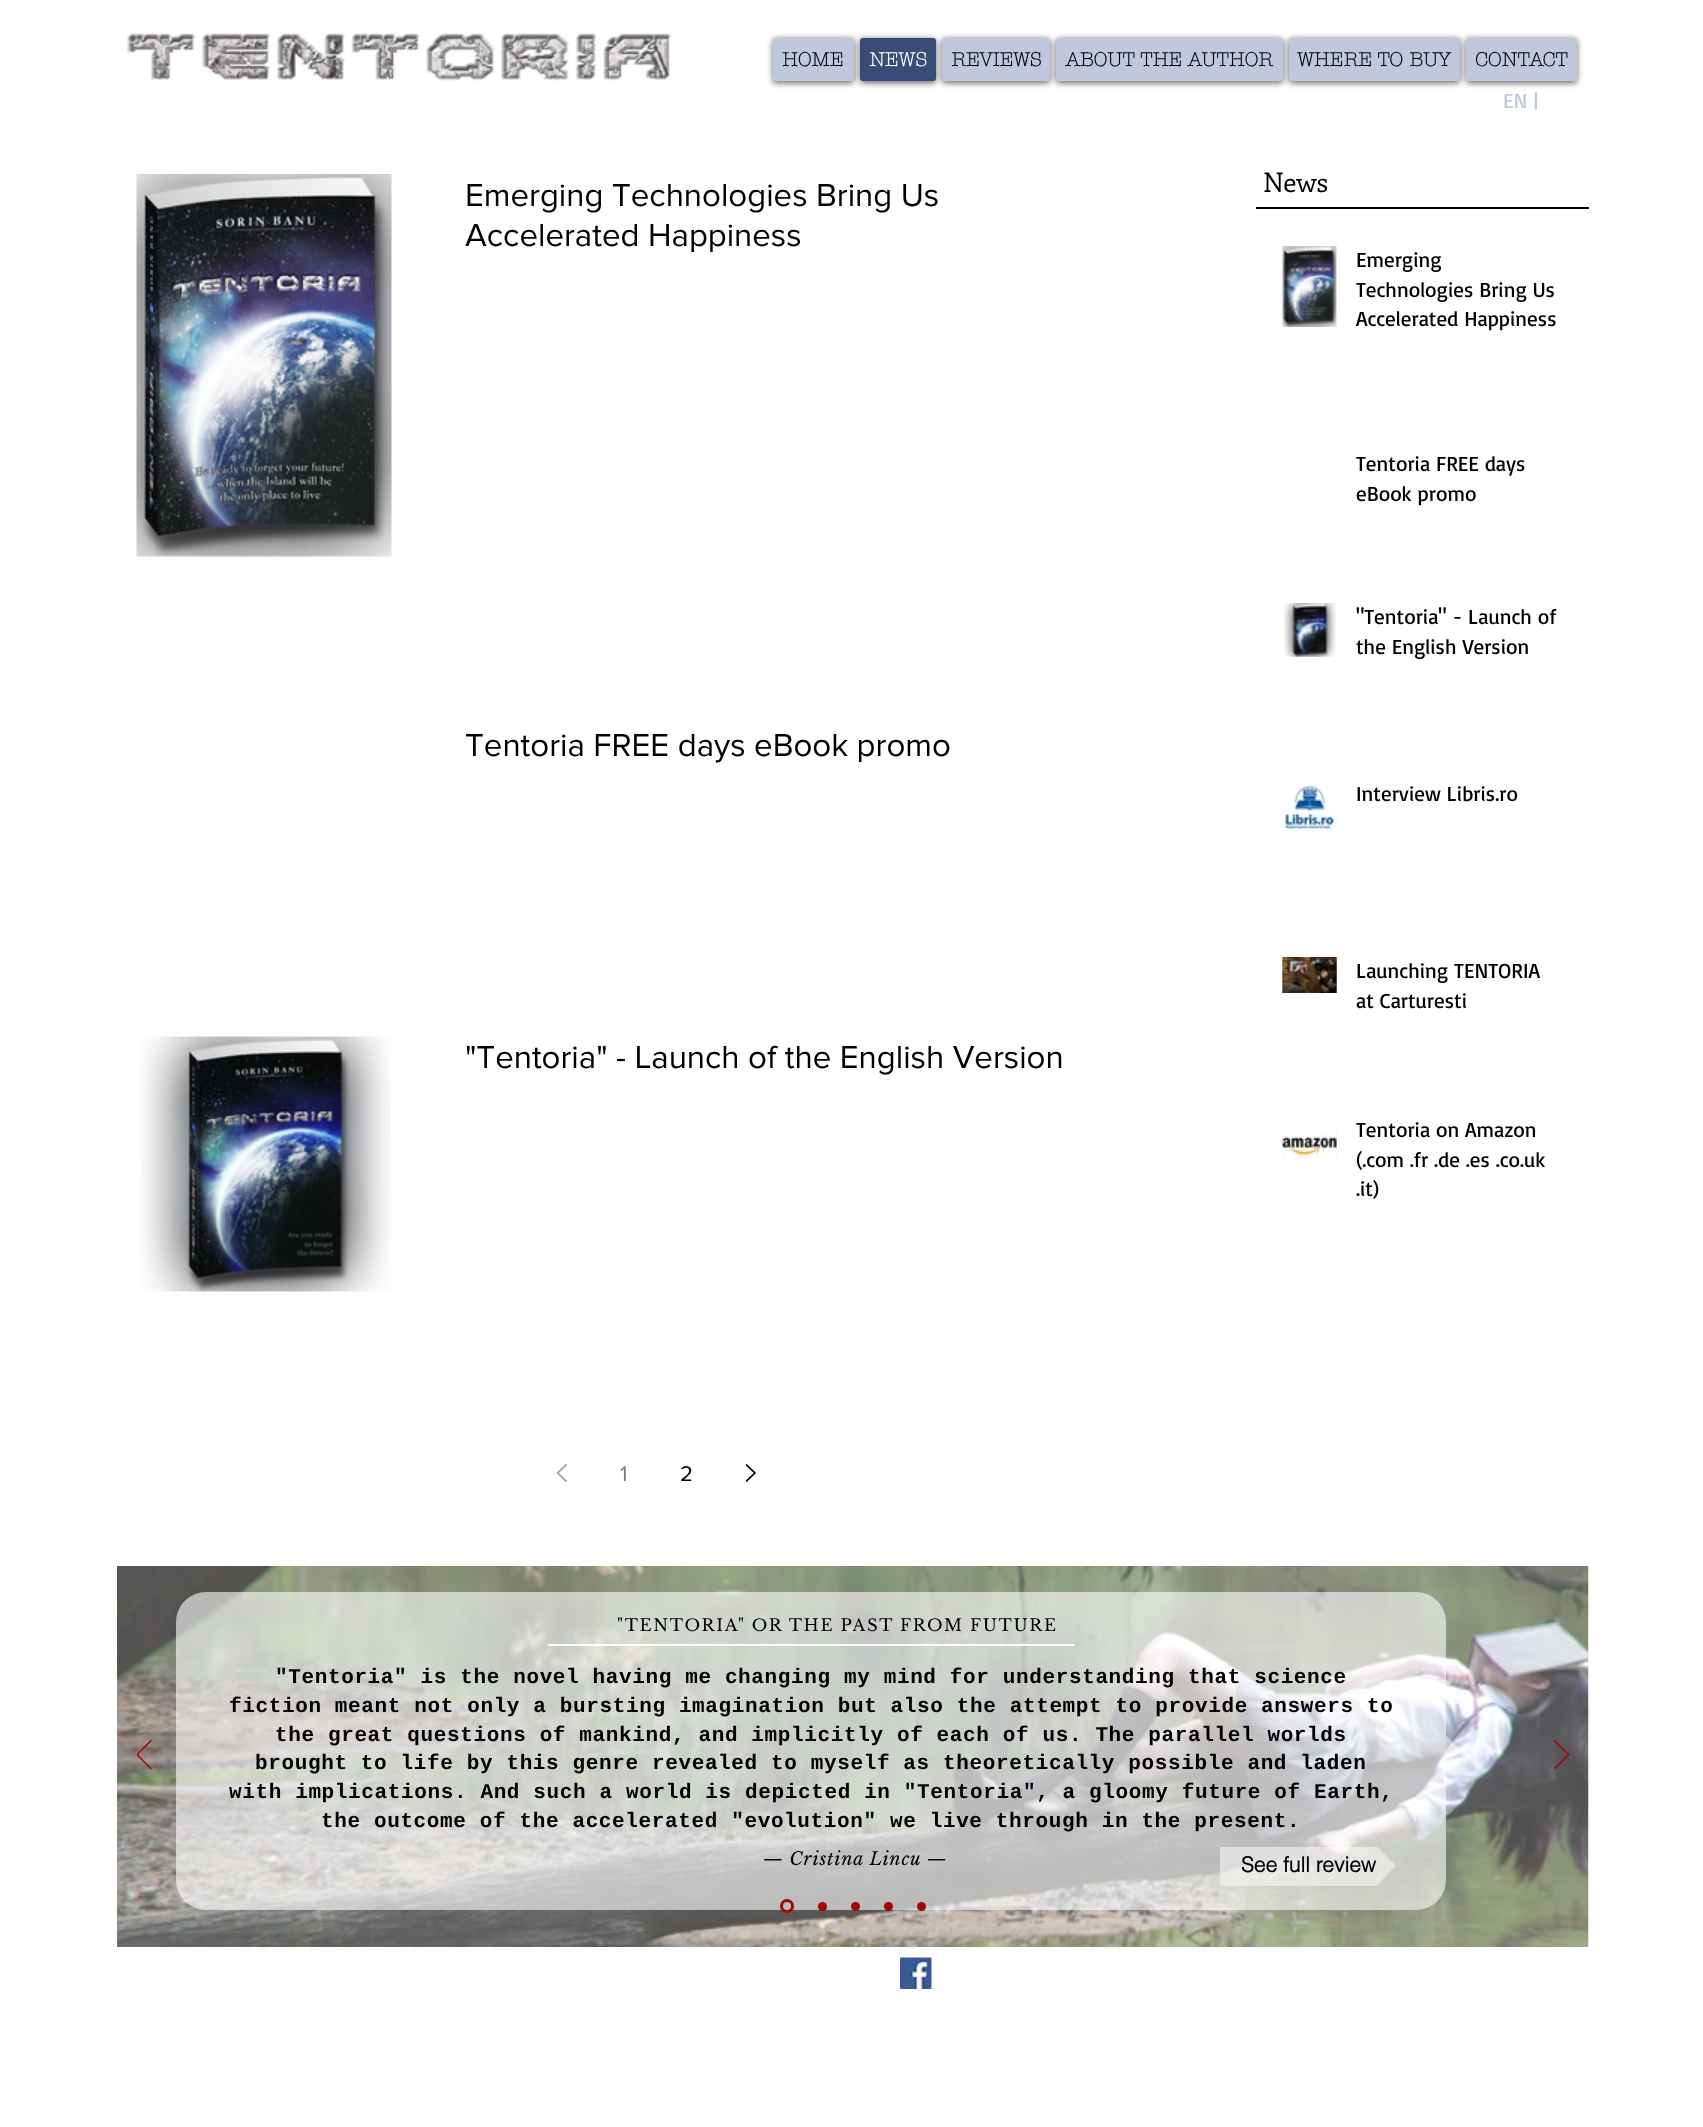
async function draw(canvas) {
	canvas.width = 1703;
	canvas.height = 2127;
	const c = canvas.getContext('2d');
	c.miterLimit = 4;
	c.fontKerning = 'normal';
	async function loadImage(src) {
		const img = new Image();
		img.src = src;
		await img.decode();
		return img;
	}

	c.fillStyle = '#fff';
	c.fillRect(0, 0, 1703, 2127);
	c.drawImage(await loadImage('img1.png'), 127, 33, 545, 48);
	c.fillStyle = '#00000099';
	c.filter = 'blur(3px)';
	c.beginPath();
	c.roundRect(773, 39, 81, 44, 3);
	c.fill();
	c.filter = 'none';
	c.fillStyle = '#c0c9dc';
	c.beginPath();
	c.roundRect(773, 38, 81, 43, 3);
	c.fill();
	c.font = 'bold 19.5px "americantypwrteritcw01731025"';
	c.fillStyle = '#000';
	c.fillText('HOME', 782, 66);
	c.fillStyle = '#00000099';
	c.filter = 'blur(3px)';
	c.beginPath();
	c.roundRect(860, 39, 76, 44, 3);
	c.fill();
	c.filter = 'none';
	c.fillStyle = '#394c75';
	c.beginPath();
	c.roundRect(860, 38, 76, 43, 3);
	c.fill();
	c.fillStyle = '#fff';
	c.fillText('NEWS', 869, 66);
	c.fillStyle = '#00000099';
	c.filter = 'blur(3px)';
	c.beginPath();
	c.roundRect(942, 39, 108, 44, 3);
	c.fill();
	c.filter = 'none';
	c.fillStyle = '#c0c9dc';
	c.beginPath();
	c.roundRect(942, 38, 108, 43, 3);
	c.fill();
	c.fillStyle = '#000';
	c.fillText('REVIEWS', 951, 66);
	c.fillStyle = '#00000099';
	c.filter = 'blur(3px)';
	c.beginPath();
	c.roundRect(1056, 39, 227, 44, 3);
	c.fill();
	c.filter = 'none';
	c.fillStyle = '#c0c9dc';
	c.beginPath();
	c.roundRect(1056, 38, 227, 43, 3);
	c.fill();
	c.fillStyle = '#000';
	c.fillText('ABOUT THE AUTHOR', 1065, 66);
	c.fillStyle = '#00000099';
	c.filter = 'blur(3px)';
	c.beginPath();
	c.roundRect(1289, 39, 171, 44, 3);
	c.fill();
	c.filter = 'none';
	c.fillStyle = '#c0c9dc';
	c.beginPath();
	c.roundRect(1289, 38, 171, 43, 3);
	c.fill();
	c.fillStyle = '#000';
	c.fillText('WHERE TO BUY', 1297, 66);
	c.fillStyle = '#00000099';
	c.filter = 'blur(3px)';
	c.beginPath();
	c.roundRect(1466, 39, 111, 44, 3);
	c.fill();
	c.filter = 'none';
	c.fillStyle = '#c0c9dc';
	c.beginPath();
	c.roundRect(1466, 38, 111, 43, 3);
	c.fill();
	c.fillStyle = '#000';
	c.fillText('CONTACT', 1475, 66);
	c.font = '21px Basic';
	c.fillStyle = '#c0c9dc';
	c.fillText('EN |', 1503, 108);
	c.drawImage(await loadImage('img2.png'), 136, 174, 256, 383);
	c.drawImage(await loadImage('img3.png'), 141, 175, 246, 381);
	c.font = '33px "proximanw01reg"';
	c.fillStyle = '#000';
	for (const [text, x, y] of [
		['Emerging Technologies Bring Us', 465, 206],
		['Accelerated Happiness', 465, 246],
		['Tentoria FREE days eBook promo', 465, 756],
	]) {
		c.fillText(text, x, y);
	}
	c.drawImage(await loadImage('img4.png'), 140, 1036, 251, 256);
	c.drawImage(await loadImage('img5.png'), 187, 1038, 163, 254);
	c.fillText('"Tentoria" - Launch of the English Version', 465, 1068);
	c.drawImage(await loadImage('img6.png'), 557, 1464, 10, 18);
	c.font = '22px "proximanw01reg"';
	c.fillStyle = '#717d97';
	c.fillText('1', 620, 1481);
	c.fillStyle = '#000';
	c.fillText('2', 680, 1481);
	c.drawImage(await loadImage('img7.png'), 746, 1464, 10, 18);
	c.font = '27px Enriqueta';
	c.fillText('News', 1263, 192);
	c.fillRect(1256, 207, 333, 2);
	c.drawImage(await loadImage('img8.png'), 1282, 246, 55, 81);
	c.drawImage(await loadImage('img9.png'), 1283, 246, 53, 81);
	c.font = '21px Basic';
	for (const [text, x, y] of [
		['Emerging', 1356, 267],
		['Technologies Bring Us', 1356, 297],
		['Accelerated Happiness', 1356, 326],
		['Tentoria FREE days', 1356, 471],
		['eBook promo', 1356, 501],
	]) {
		c.fillText(text, x, y);
	}
	c.drawImage(await loadImage('img10.png'), 1283, 603, 53, 54);
	c.drawImage(await loadImage('img11.png'), 1292, 603, 36, 54);
	c.fillText('"Tentoria" - Launch of', 1356, 624);
	c.fillText('the English Version', 1356, 654);
	c.drawImage(await loadImage('img12.png'), 1282, 780, 55, 54);
	c.drawImage(await loadImage('img13.png'), 1282, 780, 55, 54);
	c.fillText('Interview Libris.ro', 1356, 801);
	c.drawImage(await loadImage('img14.png'), 1282, 957, 55, 36);
	c.drawImage(await loadImage('img15.png'), 1282, 957, 55, 36);
	c.fillText('Launching TENTORIA', 1356, 978);
	c.fillText('at Carturesti', 1356, 1008);
	c.drawImage(await loadImage('img16.png'), 1282, 1121, 55, 49);
	c.drawImage(await loadImage('img17.png'), 1282, 1121, 55, 49);
	for (const [text, x, y] of [
		['Tentoria on Amazon', 1356, 1137],
		['(.com .fr .de .es .co.uk', 1356, 1167],
		['.it)', 1356, 1196],
	]) {
		c.fillText(text, x, y);
	}
	c.drawImage(await loadImage('img19.png'), 117, 1566, 1472, 381);
	c.drawImage(await loadImage('img18.png'), 137, 1740, 15, 29);
	c.fillStyle = '#ffffff99';
	c.beginPath();
	c.roundRect(176, 1592, 1270, 318, 30);
	c.fill();
	c.letterSpacing = '1.65px';
	c.font = '16.5px Libre Baskerville';
	c.fillStyle = '#000';
	c.fillText('"TENTORIA" OR THE PAST FROM FUTURE', 617, 1631);
	c.fillStyle = '#fff';
	c.fillRect(548, 1644, 526, 2);
	c.letterSpacing = '0.63px';
	c.font = 'bold 21px Liberation Mono';
	c.fillStyle = '#000';
	for (const [text, x, y] of [
		['"Tentoria" is the novel having me changing my mind for understanding that science', 275, 1683],
		['fiction meant not only a bursting imagination but also the attempt to provide answers to', 229, 1712],
		['the great questions of mankind, and implicitly of each of us. The parallel worlds', 275, 1741],
		['brought to life by this genre revealed to myself as theoretically possible and laden', 255, 1769],
		['with implications. And such a world is depicted in "Tentoria", a gloomy future of Earth,', 229, 1798],
		['the outcome of the accelerated "evolution" we live through in the present.', 321, 1827],
	]) {
		c.fillText(text, x, y);
	}
	c.letterSpacing = '0.75px';
	c.font = 'italic 18px Libre Baskerville';
	c.fillText('— Cristina Lincu —', 763, 1865);
	c.fillStyle = '#ffffff82';
	c.fillRect(1220, 1847, 102, 39);
	c.save();
	c.beginPath();
	c.rect(1220, 1847, 177, 39);
	c.clip();
	c.beginPath();
	c.moveTo(1396, 1866);
	c.lineTo(1322, 1866);
	c.lineTo(1322, 1791);
	c.closePath();
	c.fill();
	c.beginPath();
	c.moveTo(1322, 1866);
	c.lineTo(1396, 1866);
	c.lineTo(1322, 1941);
	c.closePath();
	c.fill();
	c.restore();
	c.letterSpacing = '0px';
	c.font = 'bold 21px helvetica';
	c.fillStyle = '#000';
	c.fillText('See full review', 1241, 1872);
	c.fillStyle = '#ffffff80';
	c.beginPath();
	c.moveTo(1446, 1765.5);
	c.lineTo(1446, 1735.5);
	c.lineTo(1461, 1750.5);
	c.closePath();
	c.fill();
	c.drawImage(await loadImage('img20.png'), 1554, 1740, 15, 29);
	c.beginPath();
	c.arc(787, 1906, 5.5, 0, 2 * Math.PI);
	c.strokeStyle = '#a40606';
	c.lineWidth = 3;
	c.stroke();
	c.fillStyle = '#a40606';
	c.beginPath();
	c.arc(822.5, 1906.5, 4.5, 0, 2 * Math.PI);
	c.fill();
	c.beginPath();
	c.arc(855.5, 1906.5, 4.5, 0, 2 * Math.PI);
	c.fill();
	c.beginPath();
	c.arc(888.5, 1906.5, 4.5, 0, 2 * Math.PI);
	c.fill();
	c.beginPath();
	c.arc(921.5, 1906.5, 4.5, 0, 2 * Math.PI);
	c.fill();
	c.drawImage(await loadImage('img21.png'), 900, 1957, 32, 32);
}

draw(document.querySelector('canvas'));
